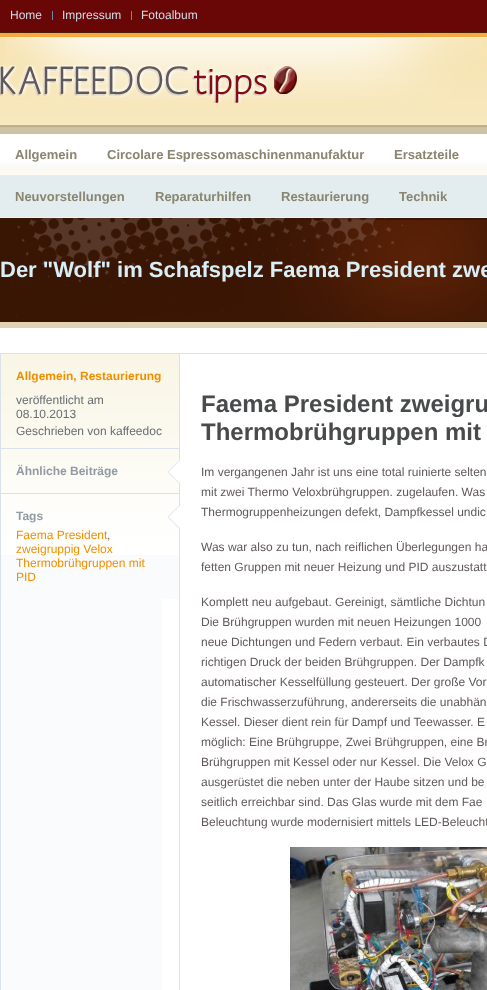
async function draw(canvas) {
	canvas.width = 487;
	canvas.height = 990;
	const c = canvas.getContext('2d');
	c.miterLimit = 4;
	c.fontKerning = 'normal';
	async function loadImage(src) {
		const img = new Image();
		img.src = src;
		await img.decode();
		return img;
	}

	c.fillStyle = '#f2f2f2';
	c.fillRect(0, 0, 487, 990);
	c.fillStyle = '#690606';
	c.fillRect(0, 0, 487, 32);
	c.fillStyle = '#4f1d09';
	c.fillRect(0, 32, 487, 1);
	c.font = '12px Liberation Sans';
	c.fillStyle = '#d1dce7';
	c.fillText('Home', 10, 19);
	c.fillStyle = '#708ba9';
	c.fillRect(52, 11, 1, 9);
	c.fillStyle = '#d1dce7';
	c.fillText('Impressum', 62, 19);
	c.fillStyle = '#708ba9';
	c.fillRect(131, 11, 1, 9);
	c.fillStyle = '#d1dce7';
	c.fillText('Fotoalbum', 141, 19);
	c.drawImage(await loadImage('img1.png'), 0, 33, 487, 92);
	c.drawImage(await loadImage('img2.png'), 6, 38, 475, 63);
	c.drawImage(await loadImage('img3.png'), 0, 65, 297, 38);
	c.fillStyle = '#e3edf0';
	c.fillRect(0, 175, 487, 42);
	c.drawImage(await loadImage('img4.png'), 0, 126, 487, 49);
	c.fillStyle = '#beaf89';
	c.fillRect(0, 125, 487, 1);
	c.font = 'bold 13px Liberation Sans';
	c.fillStyle = '#898570';
	for (const [text, x, y] of [
		['Allgemein', 15, 159],
		['Circolare Espressomaschinenmanufaktur', 107, 159],
		['Ersatzteile', 394, 159],
		['Neuvorstellungen', 15, 201],
		['Reparaturhilfen', 155, 201],
		['Restaurierung', 281, 201],
		['Technik', 399, 201],
	]) {
		c.fillText(text, x, y);
	}
	c.fillStyle = '#391504';
	c.fillRect(0, 218, 487, 104);
	c.drawImage(await loadImage('img5.png'), 16, 218, 471, 103);
	c.font = 'bold 22px Liberation Sans';
	c.fillStyle = '#d9eff7';
	c.fillText('Der "Wolf" im Schafspelz Faema President zwe', 0, 277);
	c.fillStyle = '#fff';
	c.fillRect(0, 328, 487, 662);
	c.fillStyle = '#e1d4b4';
	c.fillRect(0, 322, 487, 6);
	c.drawImage(await loadImage('img6.png'), 2, 599, 178, 391);
	c.strokeStyle = '#d9e2e9';
	c.strokeRect(0.5, 353.5, 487, 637);
	c.fillStyle = '#fafbfd';
	c.fillRect(1, 555, 178, 44);
	c.drawImage(await loadImage('img7.png'), 1, 354, 178, 201);
	c.fillStyle = '#d9e2e9';
	c.fillRect(179, 354, 1, 245);
	c.font = 'bold 12px Liberation Sans';
	c.fillStyle = '#f18e00';
	c.fillText('Allgemein, Restaurierung', 16, 380);
	c.font = '12px Liberation Sans';
	c.fillStyle = '#676d72';
	for (const [text, x, y] of [
		['veröffentlicht am', 16, 404],
		['08.10.2013', 16, 418],
		['Geschrieben von kaffeedoc', 16, 435],
	]) {
		c.fillText(text, x, y);
	}
	c.drawImage(await loadImage('img8.png'), 168, 461, 12, 22);
	c.fillStyle = '#d9e2e9';
	c.fillRect(1, 448, 179, 1);
	c.font = 'bold 12px Liberation Sans';
	c.fillStyle = '#929ba3';
	c.fillText('Ähnliche Beiträge', 16, 475);
	c.drawImage(await loadImage('img9.png'), 168, 506, 12, 22);
	c.fillStyle = '#d9e2e9';
	c.fillRect(1, 493, 179, 1);
	c.fillStyle = '#929ba3';
	c.fillText('Tags', 16, 520);
	c.font = '12px Liberation Sans';
	c.fillStyle = '#f18e00';
	c.fillText('Faema President', 16, 539);
	c.fillStyle = '#676d72';
	c.fillText(',', 107, 539);
	c.fillStyle = '#f18e00';
	for (const [text, x, y] of [
		['zweigruppig Velox', 16, 553],
		['Thermobrühgruppen mit', 16, 567],
		['PID', 16, 581],
	]) {
		c.fillText(text, x, y);
	}
	c.font = 'bold 24px Liberation Sans';
	c.fillStyle = '#484a4b';
	c.fillText('Faema President zweigru', 201, 412);
	c.fillText('Thermobrühgruppen mit', 201, 440);
	c.font = '12px Liberation Sans';
	c.fillStyle = '#615959';
	for (const [text, x, y] of [
		['Im vergangenen Jahr ist uns eine total ruinierte selten', 201, 476],
		['mit zwei Thermo Veloxbrühgruppen. zugelaufen. Was', 201, 496],
		['Thermogruppenheizungen defekt, Dampfkessel undic', 201, 516],
		['Was war also zu tun, nach reiflichen Überlegungen ha', 201, 551],
		['fetten Gruppen mit neuer Heizung und PID auszustatt', 201, 571],
		['Komplett neu aufgebaut. Gereinigt, sämtliche Dichtun', 201, 606],
		['Die Brühgruppen wurden mit neuen Heizungen 1000', 201, 626],
		['neue Dichtungen und Federn verbaut. Ein verbautes D', 201, 646],
		['richtigen Druck der beiden Brühgruppen. Der Dampfk', 201, 666],
		['automatischer Kesselfüllung gesteuert. Der große Vor', 201, 686],
		['die Frischwasserzuführung, andererseits die unabhän', 201, 706],
		['Kessel. Dieser dient rein für Dampf und Teewasser. E', 201, 726],
		['möglich: Eine Brühgruppe, Zwei Brühgruppen, eine Br', 201, 746],
		['Brühgruppen mit Kessel oder nur Kessel. Die Velox G', 201, 766],
		['ausgerüstet die neben unter der Haube sitzen und be', 201, 786],
		['seitlich erreichbar sind. Das Glas wurde mit dem Fae', 201, 806],
		['Beleuchtung wurde modernisiert mittels LED-Beleucht', 201, 826],
	]) {
		c.fillText(text, x, y);
	}
	c.drawImage(await loadImage('img10.png'), 290, 847, 197, 143);
}

draw(document.querySelector('canvas'));
